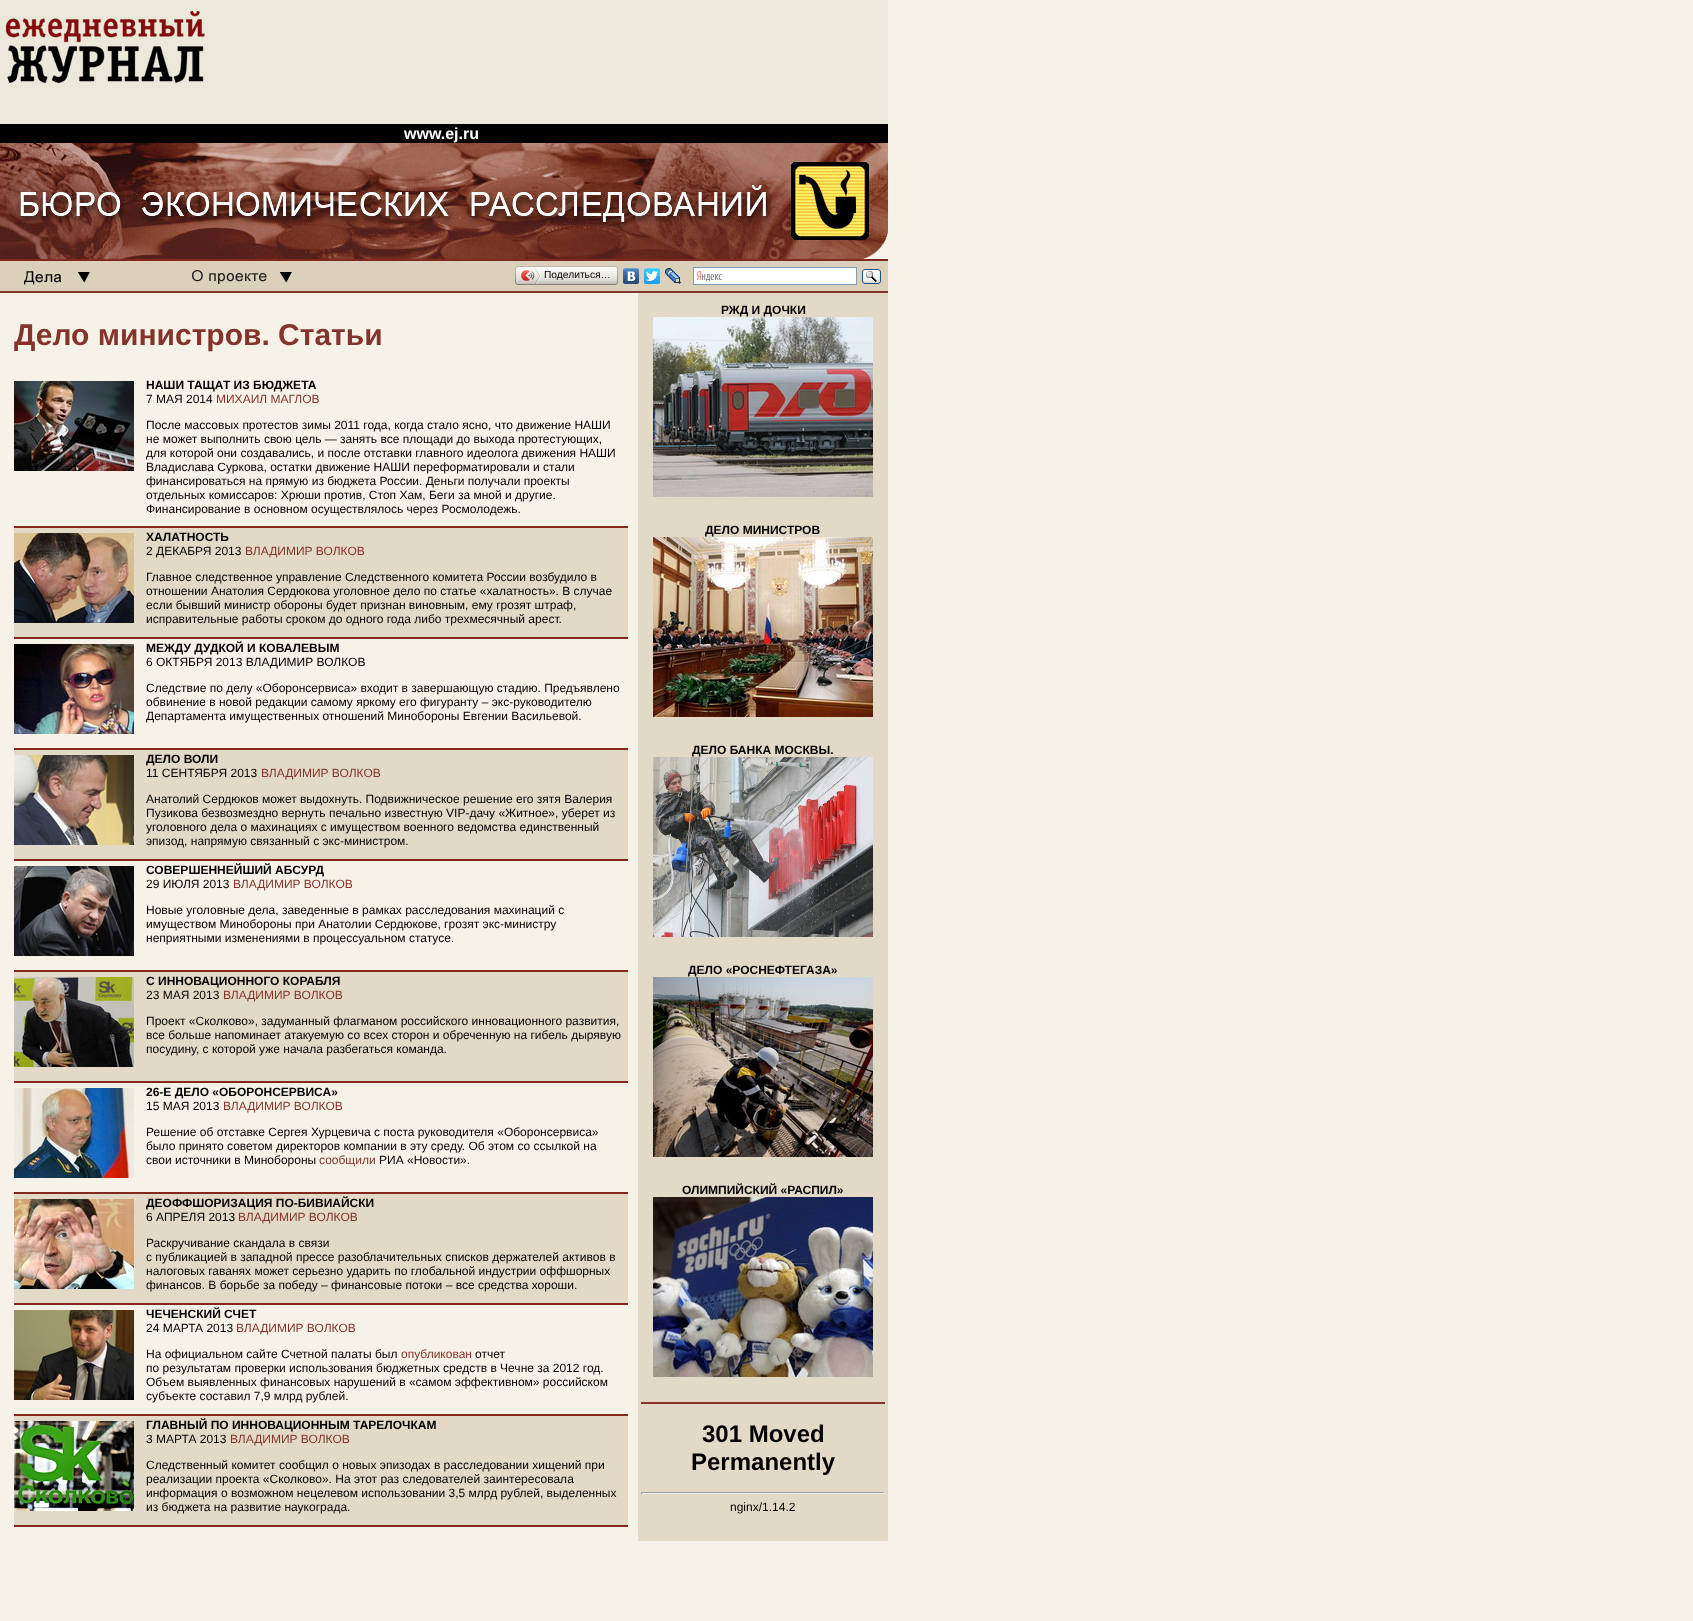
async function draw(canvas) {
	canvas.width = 1693;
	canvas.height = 1621;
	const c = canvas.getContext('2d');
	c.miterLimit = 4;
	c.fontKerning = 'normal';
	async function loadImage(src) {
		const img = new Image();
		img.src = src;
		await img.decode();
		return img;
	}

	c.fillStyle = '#f7f2e7';
	c.fillRect(0, 0, 1693, 1621);
	c.fillStyle = '#ebe8d9';
	c.fillRect(0, 0, 888, 124);
	c.drawImage(await loadImage('img1.png'), 6, 11, 199, 72);
	c.fillStyle = '#000';
	c.fillRect(0, 124, 888, 19);
	c.font = 'bold 16px Liberation Sans';
	c.fillStyle = '#fff';
	c.fillText('www.ej.ru', 404, 139);
	c.drawImage(await loadImage('img2.png'), 0, 143, 888, 118);
	c.fillStyle = '#dbd1ba';
	c.fillRect(0, 261, 888, 30);
	c.drawImage(await loadImage('img3.png'), 24, 271, 66, 14);
	c.drawImage(await loadImage('img4.png'), 192, 270, 100, 14);
	c.drawImage(await loadImage('img5.png'), 518, 266, 97, 19);
	c.drawImage(await loadImage('img6.png'), 515, 266, 3, 19);
	c.drawImage(await loadImage('img7.png'), 521, 267, 20, 17);
	c.font = '10.25px Liberation Sans';
	c.fillStyle = '#000';
	c.fillText('Поделиться…', 544, 278);
	c.drawImage(await loadImage('img8.png'), 615, 266, 3, 19);
	c.drawImage(await loadImage('img9.png'), 623, 268, 16, 16);
	c.drawImage(await loadImage('img10.png'), 644, 268, 16, 16);
	c.drawImage(await loadImage('img11.png'), 665, 268, 16, 16);
	c.fillStyle = '#fff';
	c.fillRect(694, 268, 162, 16);
	c.drawImage(await loadImage('img12.png'), 696, 271, 26, 11);
	c.strokeStyle = '#7f9db9';
	c.strokeRect(693.5, 267.5, 163, 17);
	c.drawImage(await loadImage('img13.png'), 862, 269, 19, 15);
	c.fillStyle = '#84342d';
	c.fillRect(0, 291, 888, 2);
	c.font = 'bold 30px Liberation Sans';
	c.fillText('Дело министров. Статьи', 14, 345);
	c.drawImage(await loadImage('img14.png'), 14, 381, 120, 90);
	c.font = 'bold 12px Liberation Sans';
	c.fillStyle = '#000';
	c.fillText('НАШИ ТАЩАТ ИЗ БЮДЖЕТА', 146, 389);
	c.font = '12px Liberation Sans';
	c.fillText('7 МАЯ 2014', 146, 403);
	c.fillStyle = '#84342d';
	c.fillText('МИХАИЛ МАГЛОВ', 216, 403);
	c.fillStyle = '#000';
	for (const [text, x, y] of [
		['После массовых протестов зимы 2011 года, когда стало ясно, что движение НАШИ', 146, 429],
		['не может выполнить свою цель — занять все площади до выхода протестующих,', 146, 443],
		['для которой они создавались, и после отставки главного идеолога движения НАШИ', 146, 457],
		['Владислава Суркова, остатки движение НАШИ переформатировали и стали', 146, 471],
		['финансироваться на прямую из бюджета России. Деньги получали проекты', 146, 485],
		['отдельных комиссаров: Хрюши против, Стоп Хам, Беги за мной и другие.', 146, 499],
		['Финансирование в основном осуществлялось через Росмолодежь.', 146, 513],
	]) {
		c.fillText(text, x, y);
	}
	c.fillStyle = '#83271f';
	c.fillRect(14, 526, 614, 2);
	c.fillStyle = '#e2dac7';
	c.fillRect(14, 528, 614, 109);
	c.drawImage(await loadImage('img15.png'), 14, 533, 120, 90);
	c.font = 'bold 12px Liberation Sans';
	c.fillStyle = '#000';
	c.fillText('ХАЛАТНОСТЬ', 146, 541);
	c.font = '12px Liberation Sans';
	c.fillText('2 ДЕКАБРЯ 2013', 146, 555);
	c.fillStyle = '#84342d';
	c.fillText('ВЛАДИМИР ВОЛКОВ', 245, 555);
	c.fillStyle = '#000';
	for (const [text, x, y] of [
		['Главное следственное управление Следственного комитета России возбудило в', 146, 581],
		['отношении Анатолия Сердюкова уголовное дело по статье «халатность». В случае', 146, 595],
		['если бывший министр обороны будет признан виновным, ему грозят штраф,', 146, 609],
		['исправительные работы сроком до одного года либо трехмесячный арест.', 146, 623],
	]) {
		c.fillText(text, x, y);
	}
	c.fillStyle = '#83271f';
	c.fillRect(14, 637, 614, 2);
	c.drawImage(await loadImage('img16.png'), 14, 644, 120, 90);
	c.font = 'bold 12px Liberation Sans';
	c.fillStyle = '#000';
	c.fillText('МЕЖДУ ДУДКОЙ И КОВАЛЕВЫМ', 146, 652);
	c.font = '12px Liberation Sans';
	for (const [text, x, y] of [
		['6 ОКТЯБРЯ 2013 ВЛАДИМИР ВОЛКОВ', 146, 666],
		['Следствие по делу «Оборонсервиса» входит в завершающую стадию. Предъявлено', 146, 692],
		['обвинение в новой редакции самому яркому его фигуранту – экс-руководителю', 146, 706],
		['Департамента имущественных отношений Минобороны Евгении Васильевой.', 146, 720],
	]) {
		c.fillText(text, x, y);
	}
	c.fillStyle = '#83271f';
	c.fillRect(14, 748, 614, 2);
	c.fillStyle = '#e2dac7';
	c.fillRect(14, 750, 614, 109);
	c.drawImage(await loadImage('img17.png'), 14, 755, 120, 90);
	c.font = 'bold 12px Liberation Sans';
	c.fillStyle = '#000';
	c.fillText('ДЕЛО ВОЛИ', 146, 763);
	c.font = '12px Liberation Sans';
	c.fillText('11 СЕНТЯБРЯ 2013', 146, 777);
	c.fillStyle = '#84342d';
	c.fillText('ВЛАДИМИР ВОЛКОВ', 261, 777);
	c.fillStyle = '#000';
	for (const [text, x, y] of [
		['Анатолий Сердюков может выдохнуть. Подвижническое решение его зятя Валерия', 146, 803],
		['Пузикова безвозмездно вернуть печально известную VIP-дачу «Житное», уберет из', 146, 817],
		['уголовного дела о махинациях с имуществом военного ведомства единственный', 146, 831],
		['эпизод, напрямую связанный с экс-министром.', 146, 845],
	]) {
		c.fillText(text, x, y);
	}
	c.fillStyle = '#83271f';
	c.fillRect(14, 859, 614, 2);
	c.drawImage(await loadImage('img18.png'), 14, 866, 120, 90);
	c.font = 'bold 12px Liberation Sans';
	c.fillStyle = '#000';
	c.fillText('СОВЕРШЕННЕЙШИЙ АБСУРД', 146, 874);
	c.font = '12px Liberation Sans';
	c.fillText('29 ИЮЛЯ 2013', 146, 888);
	c.fillStyle = '#84342d';
	c.fillText('ВЛАДИМИР ВОЛКОВ', 233, 888);
	c.fillStyle = '#000';
	for (const [text, x, y] of [
		['Новые уголовные дела, заведенные в рамках расследования махинаций с', 146, 914],
		['имуществом Минобороны при Анатолии Сердюкове, грозят экс-министру', 146, 928],
		['неприятными изменениями в процессуальном статусе.', 146, 942],
	]) {
		c.fillText(text, x, y);
	}
	c.fillStyle = '#83271f';
	c.fillRect(14, 970, 614, 2);
	c.fillStyle = '#e2dac7';
	c.fillRect(14, 972, 614, 109);
	c.drawImage(await loadImage('img19.png'), 14, 977, 120, 90);
	c.font = 'bold 12px Liberation Sans';
	c.fillStyle = '#000';
	c.fillText('С ИННОВАЦИОННОГО КОРАБЛЯ', 146, 985);
	c.font = '12px Liberation Sans';
	c.fillText('23 МАЯ 2013', 146, 999);
	c.fillStyle = '#84342d';
	c.fillText('ВЛАДИМИР ВОЛКОВ', 223, 999);
	c.fillStyle = '#000';
	for (const [text, x, y] of [
		['Проект «Сколково», задуманный флагманом российского инновационного развития,', 146, 1025],
		['все больше напоминает атакуемую со всех сторон и обреченную на гибель дырявую', 146, 1039],
		['посудину, с которой уже начала разбегаться команда', 146, 1053],
	]) {
		c.fillText(text, x, y);
	}
	c.font = 'italic 12px Liberation Sans';
	c.fillText('.', 444, 1053);
	c.fillStyle = '#83271f';
	c.fillRect(14, 1081, 614, 2);
	c.drawImage(await loadImage('img20.png'), 14, 1088, 120, 90);
	c.font = 'bold 12px Liberation Sans';
	c.fillStyle = '#000';
	c.fillText('26-Е ДЕЛО «ОБОРОНСЕРВИСА»', 146, 1096);
	c.font = '12px Liberation Sans';
	c.fillText('15 МАЯ 2013', 146, 1110);
	c.fillStyle = '#84342d';
	c.fillText('ВЛАДИМИР ВОЛКОВ', 223, 1110);
	c.fillStyle = '#000';
	for (const [text, x, y] of [
		['Решение об отставке Сергея Хурцевича с поста руководителя «Оборонсервиса»', 146, 1136],
		['было принято советом директоров компании в эту среду. Об этом со ссылкой на', 146, 1150],
		['свои источники в Минобороны', 146, 1164],
	]) {
		c.fillText(text, x, y);
	}
	c.fillStyle = '#84342d';
	c.fillText('сообщили', 319, 1164);
	c.fillStyle = '#000';
	c.fillText('РИА «Новости».', 379, 1164);
	c.fillStyle = '#83271f';
	c.fillRect(14, 1192, 614, 2);
	c.fillStyle = '#e2dac7';
	c.fillRect(14, 1194, 614, 109);
	c.drawImage(await loadImage('img21.png'), 14, 1199, 120, 90);
	c.font = 'bold 12px Liberation Sans';
	c.fillStyle = '#000';
	c.fillText('ДЕОФФШОРИЗАЦИЯ ПО-БИВИАЙСКИ', 146, 1207);
	c.font = '12px Liberation Sans';
	c.fillText('6 АПРЕЛЯ 2013', 146, 1221);
	c.fillStyle = '#84342d';
	c.fillText('ВЛАДИМИР ВОЛКОВ', 238, 1221);
	c.fillStyle = '#000';
	for (const [text, x, y] of [
		['Раскручивание скандала в связи', 146, 1247],
		['с публикацией в западной прессе разоблачительных списков держателей активов в', 146, 1261],
		['налоговых гаванях может серьезно ударить по глобальной индустрии оффшорных', 146, 1275],
		['финансов. В борьбе за победу – финансовые потоки – все средства хороши.', 146, 1289],
	]) {
		c.fillText(text, x, y);
	}
	c.fillStyle = '#83271f';
	c.fillRect(14, 1303, 614, 2);
	c.drawImage(await loadImage('img22.png'), 14, 1310, 120, 90);
	c.font = 'bold 12px Liberation Sans';
	c.fillStyle = '#000';
	c.fillText('ЧЕЧЕНСКИЙ СЧЕТ', 146, 1318);
	c.font = '12px Liberation Sans';
	c.fillText('24 МАРТА 2013', 146, 1332);
	c.fillStyle = '#84342d';
	c.fillText('ВЛАДИМИР ВОЛКОВ', 236, 1332);
	c.fillStyle = '#000';
	c.fillText('На официальном сайте Счетной палаты был', 146, 1358);
	c.fillStyle = '#84342d';
	c.fillText('опубликован', 401, 1358);
	c.fillStyle = '#000';
	for (const [text, x, y] of [
		['отчет', 475, 1358],
		['по результатам проверки использования бюджетных средств в Чечне за 2012 год.', 146, 1372],
		['Объем выявленных финансовых нарушений в «самом эффективном» российском', 146, 1386],
		['субъекте составил 7,9 млрд рублей.', 146, 1400],
	]) {
		c.fillText(text, x, y);
	}
	c.fillStyle = '#83271f';
	c.fillRect(14, 1414, 614, 2);
	c.fillStyle = '#e2dac7';
	c.fillRect(14, 1416, 614, 109);
	c.drawImage(await loadImage('img23.png'), 14, 1421, 120, 90);
	c.font = 'bold 12px Liberation Sans';
	c.fillStyle = '#000';
	c.fillText('ГЛАВНЫЙ ПО ИННОВАЦИОННЫМ ТАРЕЛОЧКАМ', 146, 1429);
	c.font = '12px Liberation Sans';
	c.fillText('3 МАРТА 2013', 146, 1443);
	c.fillStyle = '#84342d';
	c.fillText('ВЛАДИМИР ВОЛКОВ', 230, 1443);
	c.fillStyle = '#000';
	for (const [text, x, y] of [
		['Следственный комитет сообщил о новых эпизодах в расследовании хищений при', 146, 1469],
		['реализации проекта «Сколково». На этот раз следователей заинтересовала', 146, 1483],
		['информация о возможном нецелевом использовании 3,5 млрд рублей, выделенных', 146, 1497],
		['из бюджета на развитие наукограда.', 146, 1511],
	]) {
		c.fillText(text, x, y);
	}
	c.fillStyle = '#83271f';
	c.fillRect(14, 1525, 614, 2);
	c.fillStyle = '#e2dac7';
	c.fillRect(638, 293, 250, 1248);
	c.font = 'bold 12px Liberation Sans';
	c.fillStyle = '#000';
	c.fillText('РЖД И ДОЧКИ', 721, 314);
	c.drawImage(await loadImage('img24.png'), 653, 317, 220, 180);
	c.fillText('ДЕЛО МИНИСТРОВ', 705, 534);
	c.drawImage(await loadImage('img25.png'), 653, 537, 220, 180);
	c.fillText('ДЕЛО БАНКА МОСКВЫ.', 692, 754);
	c.drawImage(await loadImage('img26.png'), 653, 757, 220, 180);
	c.fillText('ДЕЛО «РОСНЕФТЕГАЗА»', 688, 974);
	c.drawImage(await loadImage('img27.png'), 653, 977, 220, 180);
	c.fillText('ОЛИМПИЙСКИЙ «РАСПИЛ»', 682, 1194);
	c.drawImage(await loadImage('img28.png'), 653, 1197, 220, 180);
	c.fillStyle = '#84342d';
	c.fillRect(641, 1402, 244, 2);
	c.font = 'bold 24px Liberation Sans';
	c.fillStyle = '#000';
	c.fillText('301 Moved', 702, 1442);
	c.fillText('Permanently', 691, 1470);
	for (const [x, y, w, h, color] of [
		[641, 1492, 244, 1, '#9f9f9f'],
		[884, 1492, 1, 2, '#eee'],
		[641, 1493, 244, 1, '#eee'],
		[641, 1492, 1, 2, '#9f9f9f'],
	]) {
		c.fillStyle = color;
		c.fillRect(x, y, w, h);
	}
	c.font = '12px Liberation Sans';
	c.fillStyle = '#000';
	c.fillText('nginx/1.14.2', 730, 1511);
}

draw(document.querySelector('canvas'));
